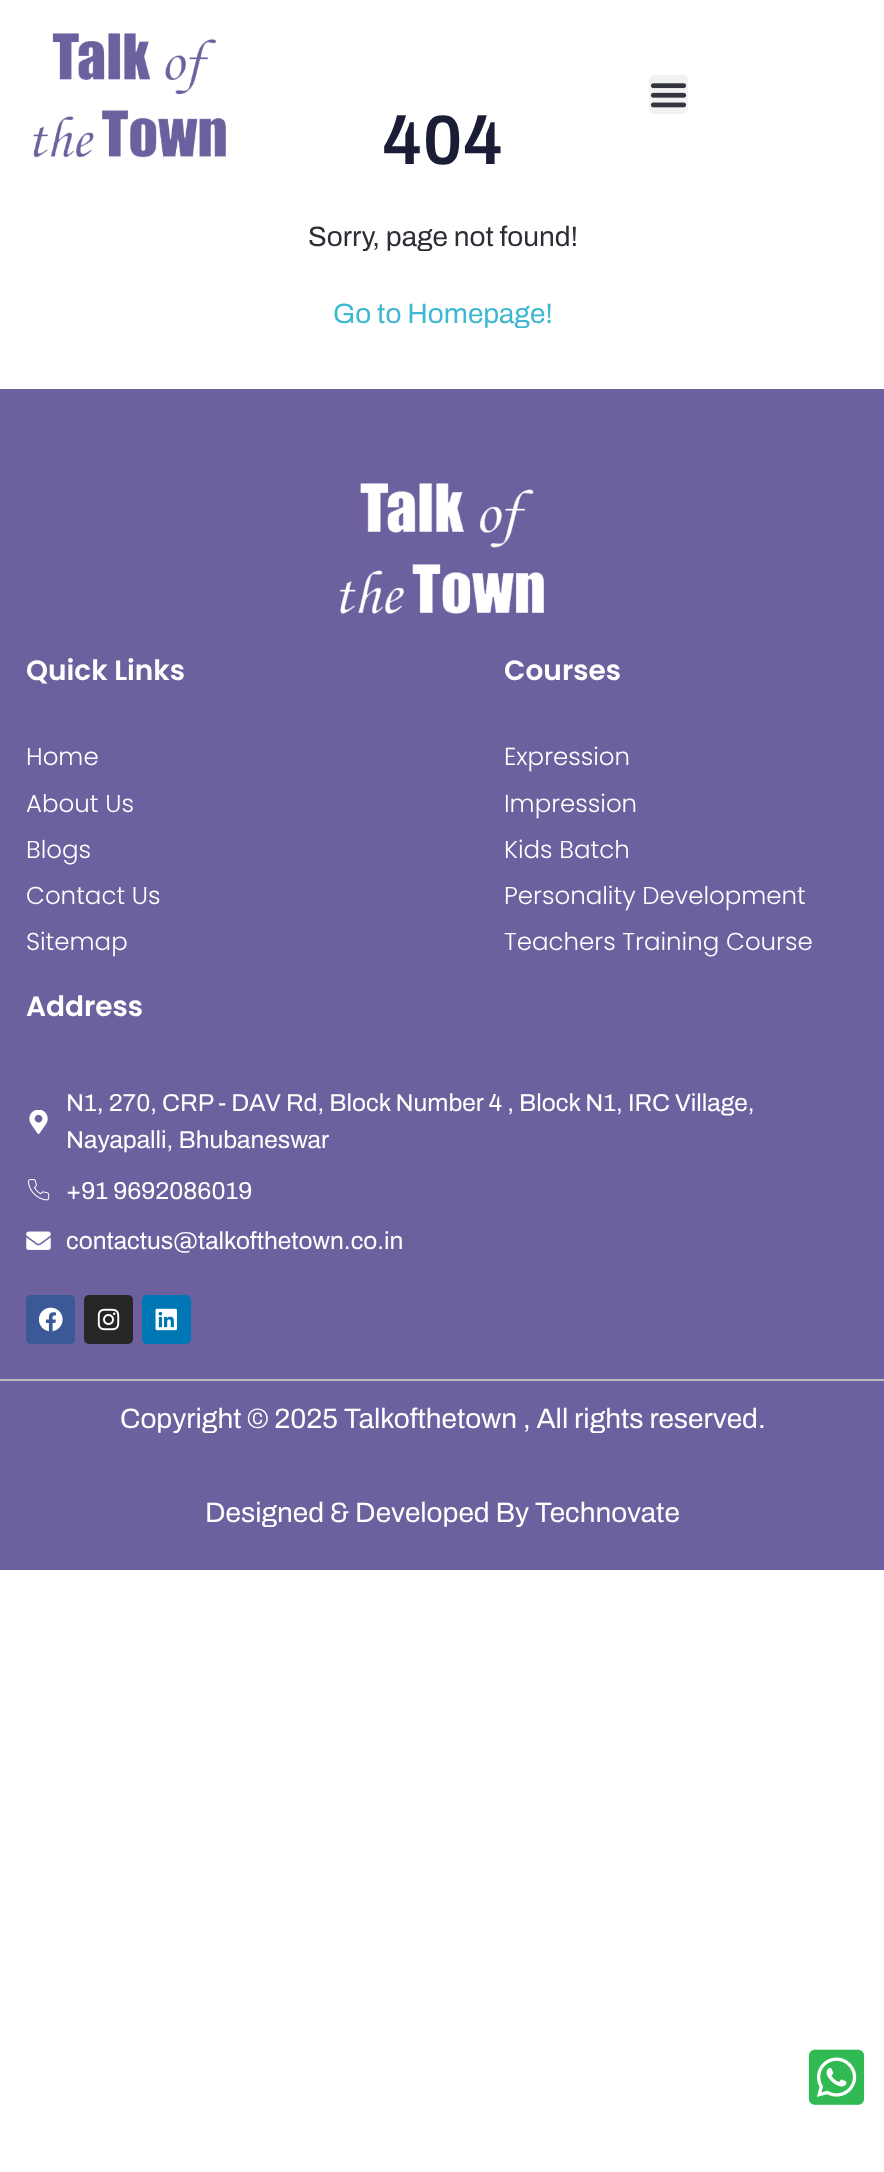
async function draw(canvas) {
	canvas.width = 884;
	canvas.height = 2172;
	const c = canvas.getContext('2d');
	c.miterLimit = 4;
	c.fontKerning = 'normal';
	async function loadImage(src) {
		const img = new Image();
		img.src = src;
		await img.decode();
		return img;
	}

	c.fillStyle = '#fff';
	c.fillRect(0, 0, 884, 2172);
	c.drawImage(await loadImage('img1.png'), 33, 33, 193, 125);
	c.fillStyle = '#f2f2f2';
	c.beginPath();
	c.roundRect(649, 75, 39, 39, 5);
	c.fill();
	c.drawImage(await loadImage('img2.png'), 650, 83, 37, 25);
	c.font = '600 70px Archivo';
	c.fillStyle = '#1a1d35';
	c.fillText('404', 382, 164);
	c.font = '28px Archivo';
	c.fillStyle = '#2c2d35';
	c.fillText('Sorry, page not found!', 308, 246);
	c.fillStyle = '#3eb7d0';
	c.fillText('Go to Homepage!', 333, 323);
	c.fillStyle = '#6d609e';
	c.fillRect(0, 389, 884, 990);
	c.drawImage(await loadImage('img3.png'), 339, 483, 205, 131);
	c.font = '600 28px Poppins';
	c.fillStyle = '#fff';
	c.fillText('Quick Links', 26, 680);
	c.font = '300 24.5px Poppins';
	for (const [text, x, y] of [
		['Home', 26, 765],
		['About Us', 26, 812],
		['Blogs', 26, 858],
		['Contact Us', 26, 904],
		['Sitemap', 26, 950],
	]) {
		c.fillText(text, x, y);
	}
	c.font = '600 28px Poppins';
	c.fillText('Courses', 504, 680);
	c.font = '300 24.5px Poppins';
	for (const [text, x, y] of [
		['Expression', 504, 765],
		['Impression', 504, 812],
		['Kids Batch', 504, 858],
		['Personality Development', 504, 904],
		['Teachers Training Course', 504, 950],
	]) {
		c.fillText(text, x, y);
	}
	c.font = '600 28px Poppins';
	c.fillText('Address', 26, 1016);
	c.drawImage(await loadImage('img4.png'), 29, 1110, 19, 24);
	c.font = '24.5px Archivo';
	c.fillText('N1, 270, CRP - DAV Rd, Block Number 4 , Block N1, IRC Village,', 66, 1111);
	c.fillText('Nayapalli, Bhubaneswar', 66, 1148);
	c.drawImage(await loadImage('img5.png'), 27, 1179, 23, 22);
	c.fillText('+91 9692086019', 66, 1199);
	c.drawImage(await loadImage('img6.png'), 26, 1231, 25, 19);
	c.fillText('contactus@talkofthetown.co.in', 66, 1249);
	c.fillStyle = '#3b5998';
	c.beginPath();
	c.roundRect(26, 1295, 49, 49, 5);
	c.fill();
	c.drawImage(await loadImage('img7.png'), 39, 1307, 24, 25);
	c.fillStyle = '#262626';
	c.beginPath();
	c.roundRect(84, 1295, 49, 49, 5);
	c.fill();
	c.drawImage(await loadImage('img8.png'), 97, 1308, 23, 23);
	c.fillStyle = '#0077b5';
	c.beginPath();
	c.roundRect(142, 1295, 49, 49, 5);
	c.fill();
	c.drawImage(await loadImage('img9.png'), 155, 1308, 22, 23);
	c.fillStyle = '#6d609e';
	c.fillRect(0, 1381, 884, 189);
	c.fillStyle = '#bbb';
	c.fillRect(0, 1379, 884, 2);
	c.font = '28px Archivo';
	c.fillStyle = '#fff';
	c.fillText('Copyright © 2025 Talkofthetown , All rights reserved.', 120, 1428);
	c.fillText('Designed & Developed By Technovate', 205, 1522);
	c.drawImage(await loadImage('img10.png'), 808, 2049, 57, 56);
}

draw(document.querySelector('canvas'));
